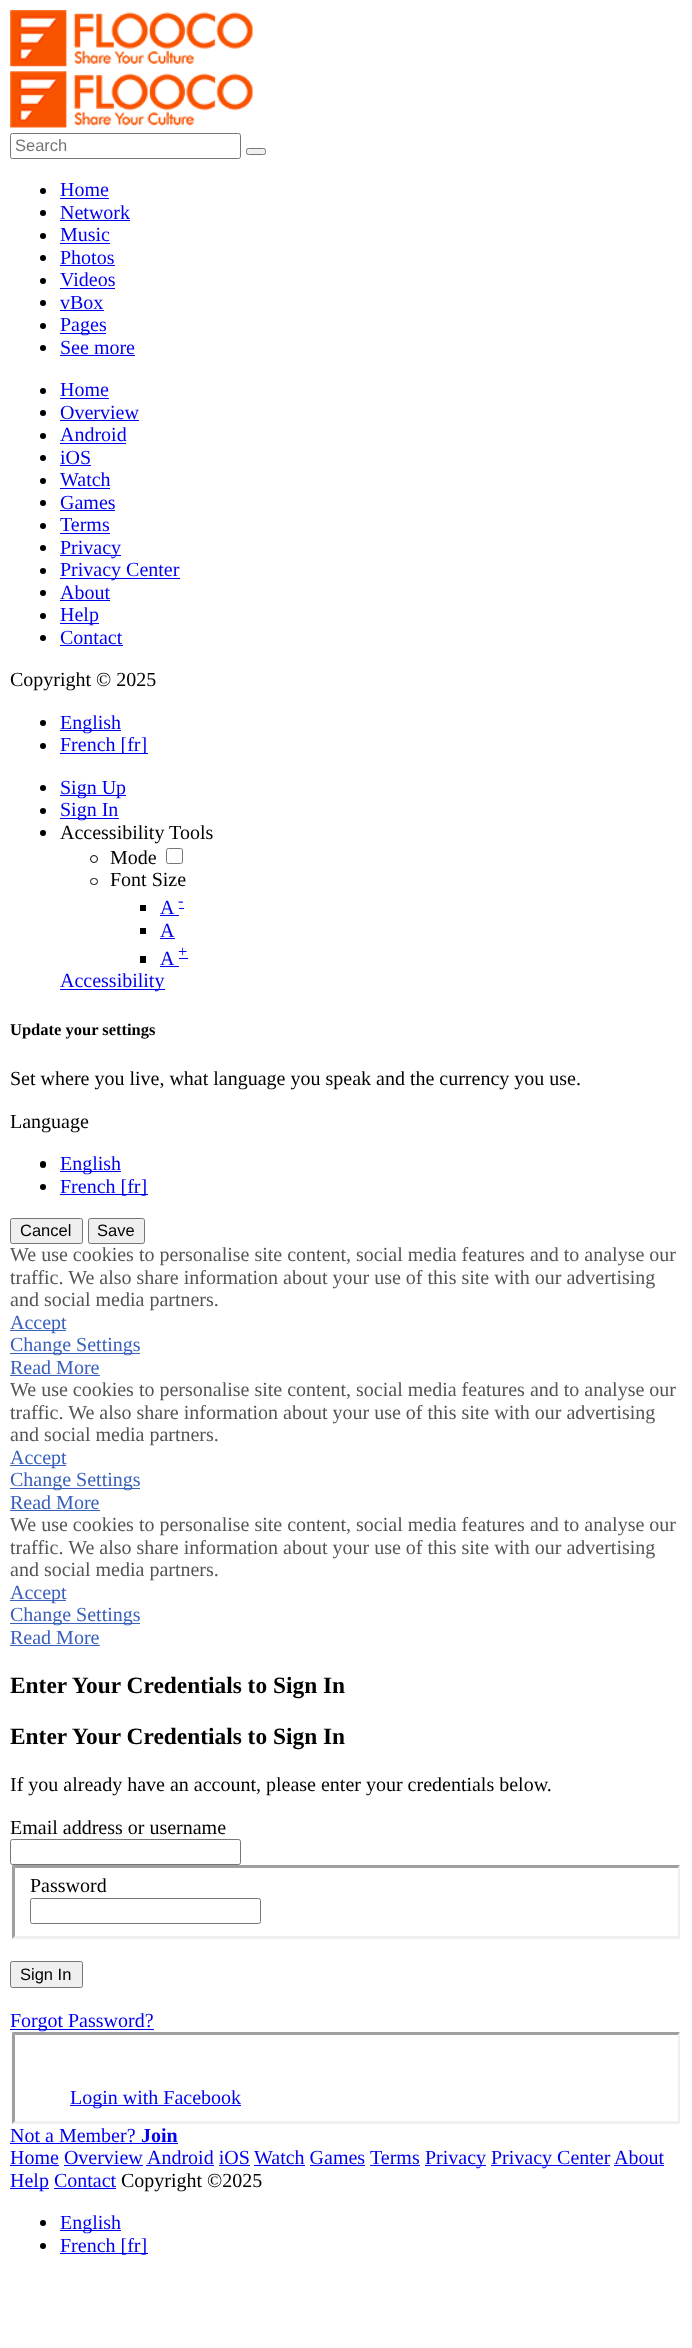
async function draw(canvas) {
	canvas.width = 692;
	canvas.height = 2348;
	const c = canvas.getContext('2d');
	c.miterLimit = 4;
	c.fontKerning = 'normal';
	async function loadImage(src) {
		const img = new Image();
		img.src = src;
		await img.decode();
		return img;
	}

	c.fillStyle = '#fff';
	c.fillRect(0, 0, 692, 2348);
	c.drawImage(await loadImage('img1.png'), 10, 10, 243, 57);
	c.drawImage(await loadImage('img2.png'), 10, 71, 243, 57);
	c.beginPath();
	c.roundRect(10.5, 133.5, 230, 25, 2);
	c.strokeStyle = '#767676';
	c.stroke();
	c.font = '16.5px Liberation Sans';
	c.fillStyle = '#757575';
	c.fillText('Search', 15, 151);
	c.fillStyle = '#efefef';
	c.beginPath();
	c.roundRect(246.5, 148.5, 19, 6, 2);
	c.fill();
	c.stroke();
	c.fillStyle = '#000';
	c.beginPath();
	c.arc(43, 191, 3, 0, 2 * Math.PI);
	c.fill();
	c.font = '20px Liberation Serif';
	c.fillStyle = '#00e';
	c.fillText('Home', 60, 196);
	c.fillRect(60, 198, 49, 1);
	c.fillStyle = '#000';
	c.beginPath();
	c.arc(43, 213, 3, 0, 2 * Math.PI);
	c.fill();
	c.fillStyle = '#00e';
	c.fillText('Network', 60, 219);
	c.fillRect(60, 220, 70, 1);
	c.fillStyle = '#000';
	c.beginPath();
	c.arc(43, 236, 3, 0, 2 * Math.PI);
	c.fill();
	c.fillStyle = '#00e';
	c.fillText('Music', 60, 241);
	c.fillRect(60, 243, 50, 1);
	c.fillStyle = '#000';
	c.beginPath();
	c.arc(43, 258, 3, 0, 2 * Math.PI);
	c.fill();
	c.fillStyle = '#00e';
	c.fillText('Photos', 60, 264);
	c.fillRect(60, 265, 55, 1);
	c.fillStyle = '#000';
	c.beginPath();
	c.arc(43, 281, 3, 0, 2 * Math.PI);
	c.fill();
	c.fillStyle = '#00e';
	c.fillText('Videos', 60, 286);
	c.fillRect(60, 288, 55, 1);
	c.fillStyle = '#000';
	c.beginPath();
	c.arc(43, 303, 3, 0, 2 * Math.PI);
	c.fill();
	c.fillStyle = '#00e';
	c.fillText('vBox', 60, 309);
	c.fillRect(60, 310, 44, 1);
	c.fillStyle = '#000';
	c.beginPath();
	c.arc(43, 326, 3, 0, 2 * Math.PI);
	c.fill();
	c.fillStyle = '#00e';
	c.fillRect(60, 333, 46, 1);
	c.fillText('Pages', 60, 331);
	c.fillStyle = '#000';
	c.beginPath();
	c.arc(43, 348, 3, 0, 2 * Math.PI);
	c.fill();
	c.fillStyle = '#00e';
	c.fillText('See more', 60, 354);
	c.fillRect(60, 355, 75, 1);
	c.fillStyle = '#000';
	c.beginPath();
	c.arc(43, 391, 3, 0, 2 * Math.PI);
	c.fill();
	c.fillStyle = '#00e';
	c.fillText('Home', 60, 396);
	c.fillRect(60, 398, 49, 1);
	c.fillStyle = '#000';
	c.beginPath();
	c.arc(43, 413, 3, 0, 2 * Math.PI);
	c.fill();
	c.fillStyle = '#00e';
	c.fillText('Overview', 60, 419);
	c.fillRect(60, 420, 79, 1);
	c.fillStyle = '#000';
	c.beginPath();
	c.arc(43, 436, 3, 0, 2 * Math.PI);
	c.fill();
	c.fillStyle = '#00e';
	c.fillText('Android', 60, 441);
	c.fillRect(60, 443, 66, 1);
	c.fillStyle = '#000';
	c.beginPath();
	c.arc(43, 458, 3, 0, 2 * Math.PI);
	c.fill();
	c.fillStyle = '#00e';
	c.fillText('iOS', 60, 464);
	c.fillRect(60, 465, 31, 1);
	c.fillStyle = '#000';
	c.beginPath();
	c.arc(43, 481, 3, 0, 2 * Math.PI);
	c.fill();
	c.fillStyle = '#00e';
	c.fillText('Watch', 60, 486);
	c.fillRect(60, 488, 50, 1);
	c.fillStyle = '#000';
	c.beginPath();
	c.arc(43, 503, 3, 0, 2 * Math.PI);
	c.fill();
	c.fillStyle = '#00e';
	c.fillText('Games', 60, 509);
	c.fillRect(60, 510, 55, 1);
	c.fillStyle = '#000';
	c.beginPath();
	c.arc(43, 526, 3, 0, 2 * Math.PI);
	c.fill();
	c.fillStyle = '#00e';
	c.fillText('Terms', 60, 531);
	c.fillRect(60, 533, 50, 1);
	c.fillStyle = '#000';
	c.beginPath();
	c.arc(43, 548, 3, 0, 2 * Math.PI);
	c.fill();
	c.fillStyle = '#00e';
	c.fillRect(60, 555, 61, 1);
	c.fillText('Privacy', 60, 554);
	c.fillStyle = '#000';
	c.beginPath();
	c.arc(43, 571, 3, 0, 2 * Math.PI);
	c.fill();
	c.fillStyle = '#00e';
	c.fillRect(60, 578, 120, 1);
	c.fillText('Privacy Center', 60, 576);
	c.fillStyle = '#000';
	c.beginPath();
	c.arc(43, 593, 3, 0, 2 * Math.PI);
	c.fill();
	c.fillStyle = '#00e';
	c.fillText('About', 60, 599);
	c.fillRect(60, 600, 50, 1);
	c.fillStyle = '#000';
	c.beginPath();
	c.arc(43, 616, 3, 0, 2 * Math.PI);
	c.fill();
	c.fillStyle = '#00e';
	c.fillRect(60, 623, 39, 1);
	c.fillText('Help', 60, 621);
	c.fillStyle = '#000';
	c.beginPath();
	c.arc(43, 638, 3, 0, 2 * Math.PI);
	c.fill();
	c.fillStyle = '#00e';
	c.fillText('Contact', 60, 644);
	c.fillRect(60, 645, 63, 1);
	c.fillStyle = '#000';
	c.fillText('Copyright © 2025', 10, 686);
	c.beginPath();
	c.arc(43, 723, 3, 0, 2 * Math.PI);
	c.fill();
	c.fillStyle = '#00e';
	c.fillRect(60, 730, 61, 1);
	c.fillText('English', 60, 729);
	c.fillStyle = '#000';
	c.beginPath();
	c.arc(43, 746, 3, 0, 2 * Math.PI);
	c.fill();
	c.fillStyle = '#00e';
	c.fillRect(60, 753, 88, 1);
	c.fillText('French [fr]', 60, 751);
	c.fillStyle = '#000';
	c.beginPath();
	c.arc(43, 788, 3, 0, 2 * Math.PI);
	c.fill();
	c.fillStyle = '#00e';
	c.fillRect(60, 795, 66, 1);
	c.fillText('Sign Up', 60, 794);
	c.fillStyle = '#000';
	c.beginPath();
	c.arc(43, 811, 3, 0, 2 * Math.PI);
	c.fill();
	c.fillStyle = '#00e';
	c.fillRect(60, 818, 59, 1);
	c.fillText('Sign In', 60, 816);
	c.fillStyle = '#000';
	c.beginPath();
	c.arc(43, 833, 3, 0, 2 * Math.PI);
	c.fill();
	c.fillText('Accessibility Tools', 60, 839);
	c.beginPath();
	c.arc(94, 859, 3.5, 0, 2 * Math.PI);
	c.strokeStyle = '#000';
	c.stroke();
	c.fillText('Mode', 110, 864);
	c.beginPath();
	c.roundRect(166.5, 848.5, 16, 15, 2);
	c.strokeStyle = '#767676';
	c.stroke();
	c.beginPath();
	c.roundRect(90.5, 878.5, 7, 6, 3);
	c.strokeStyle = '#000';
	c.stroke();
	c.fillText('Font Size', 110, 886);
	c.fillStyle = '#00e';
	c.fillText('A', 160, 914);
	c.fillRect(160, 915, 19, 1);
	c.fillRect(179, 908, 5, 1);
	c.font = '16.5px Liberation Serif';
	c.fillText('-', 178, 906);
	c.fillStyle = '#000';
	c.fillRect(140, 905, 6, 6);
	c.fillRect(140, 928, 6, 6);
	c.font = '20px Liberation Serif';
	c.fillStyle = '#00e';
	c.fillText('A', 160, 937);
	c.fillRect(160, 938, 15, 1);
	c.fillStyle = '#000';
	c.fillRect(140, 956, 6, 7);
	c.fillStyle = '#00e';
	c.fillText('A', 160, 965);
	c.fillRect(160, 966, 19, 1);
	c.fillRect(179, 958, 9, 1);
	c.font = '16.5px Liberation Serif';
	c.fillText('+', 178, 957);
	c.fillRect(60, 989, 105, 1);
	c.font = '20px Liberation Serif';
	c.fillText('Accessibility', 60, 987);
	c.font = 'bold 16.5px Liberation Serif';
	c.fillStyle = '#000';
	c.fillText('Update your settings', 10, 1035);
	c.font = '20px Liberation Serif';
	c.fillText('Set where you live, what language you speak and the currency you use.', 10, 1085);
	c.fillText('Language', 10, 1128);
	c.beginPath();
	c.roundRect(40, 1161, 6, 7, 3);
	c.fill();
	c.fillStyle = '#00e';
	c.fillRect(60, 1171, 61, 1);
	c.fillText('English', 60, 1170);
	c.fillStyle = '#000';
	c.beginPath();
	c.arc(43, 1187, 3, 0, 2 * Math.PI);
	c.fill();
	c.fillStyle = '#00e';
	c.fillRect(60, 1194, 88, 1);
	c.fillText('French [fr]', 60, 1193);
	c.fillStyle = '#efefef';
	c.beginPath();
	c.roundRect(10.5, 1218.5, 72, 25, 2);
	c.fill();
	c.strokeStyle = '#767676';
	c.stroke();
	c.font = '16.5px Liberation Sans';
	c.fillStyle = '#000';
	c.fillText('Cancel', 20, 1236);
	c.fillStyle = '#efefef';
	c.beginPath();
	c.roundRect(88.5, 1218.5, 56, 25, 2);
	c.fill();
	c.stroke();
	c.fillStyle = '#000';
	c.fillText('Save', 97, 1236);
	c.font = '20px Liberation Serif';
	c.fillStyle = '#555';
	for (const [text, x, y] of [
		['We use cookies to personalise site content, social media features and to analyse our', 10, 1261],
		['traffic. We also share information about your use of this site with our advertising', 10, 1284],
		['and social media partners.', 10, 1306],
	]) {
		c.fillText(text, x, y);
	}
	c.fillStyle = '#3960bb';
	c.fillRect(10, 1330, 56, 1);
	c.fillText('Accept', 10, 1329);
	c.fillRect(10, 1353, 130, 1);
	c.fillText('Change Settings', 10, 1351);
	c.fillText('Read More', 10, 1374);
	c.fillRect(10, 1375, 90, 1);
	c.fillStyle = '#555';
	for (const [text, x, y] of [
		['We use cookies to personalise site content, social media features and to analyse our', 10, 1396],
		['traffic. We also share information about your use of this site with our advertising', 10, 1419],
		['and social media partners.', 10, 1441],
	]) {
		c.fillText(text, x, y);
	}
	c.fillStyle = '#3960bb';
	c.fillRect(10, 1465, 56, 1);
	c.fillText('Accept', 10, 1464);
	c.fillRect(10, 1488, 130, 1);
	c.fillText('Change Settings', 10, 1486);
	c.fillText('Read More', 10, 1509);
	c.fillRect(10, 1510, 90, 1);
	c.fillStyle = '#555';
	for (const [text, x, y] of [
		['We use cookies to personalise site content, social media features and to analyse our', 10, 1531],
		['traffic. We also share information about your use of this site with our advertising', 10, 1554],
		['and social media partners.', 10, 1576],
	]) {
		c.fillText(text, x, y);
	}
	c.fillStyle = '#3960bb';
	c.fillRect(10, 1600, 56, 1);
	c.fillText('Accept', 10, 1599);
	c.fillRect(10, 1623, 130, 1);
	c.fillText('Change Settings', 10, 1621);
	c.fillText('Read More', 10, 1644);
	c.fillRect(10, 1645, 90, 1);
	c.font = 'bold 23.4px Liberation Serif';
	c.fillStyle = '#000';
	c.fillText('Enter Your Credentials to Sign In', 10, 1693);
	c.fillText('Enter Your Credentials to Sign In', 10, 1744);
	c.font = '20px Liberation Serif';
	c.fillText('If you already have an account, please enter your credentials below.', 10, 1791);
	c.fillText('Email address or username', 10, 1834);
	c.beginPath();
	c.roundRect(10.5, 1839.5, 230, 25, 2);
	c.stroke();
	c.fillStyle = '#9f9f9f';
	c.beginPath();
	c.moveTo(12, 1865);
	c.lineTo(680, 1865);
	c.lineTo(678, 1868);
	c.lineTo(15, 1868);
	c.closePath();
	c.fill();
	c.fillStyle = '#efefef';
	c.beginPath();
	c.moveTo(680, 1865);
	c.lineTo(680, 1939);
	c.lineTo(678, 1936);
	c.lineTo(678, 1868);
	c.closePath();
	c.fill();
	c.beginPath();
	c.moveTo(680, 1939);
	c.lineTo(12, 1939);
	c.lineTo(15, 1936);
	c.lineTo(678, 1936);
	c.closePath();
	c.fill();
	c.fillStyle = '#9f9f9f';
	c.beginPath();
	c.moveTo(12, 1939);
	c.lineTo(12, 1865);
	c.lineTo(15, 1868);
	c.lineTo(15, 1936);
	c.closePath();
	c.fill();
	c.fillStyle = '#000';
	c.fillText('Password', 30, 1892);
	c.beginPath();
	c.roundRect(30.5, 1898.5, 230, 25, 2);
	c.stroke();
	c.fillStyle = '#efefef';
	c.beginPath();
	c.roundRect(10.5, 1961.5, 72, 26, 2);
	c.fill();
	c.stroke();
	c.font = '16.5px Liberation Sans';
	c.fillStyle = '#000';
	c.fillText('Sign In', 20, 1980);
	c.fillStyle = '#00e';
	c.fillRect(10, 2029, 144, 1);
	c.font = '20px Liberation Serif';
	c.fillText('Forgot Password?', 10, 2027);
	c.fillStyle = '#9f9f9f';
	c.beginPath();
	c.moveTo(12, 2032);
	c.lineTo(680, 2032);
	c.lineTo(678, 2035);
	c.lineTo(15, 2035);
	c.closePath();
	c.fill();
	c.fillStyle = '#efefef';
	c.beginPath();
	c.moveTo(680, 2032);
	c.lineTo(680, 2124);
	c.lineTo(678, 2121);
	c.lineTo(678, 2035);
	c.closePath();
	c.fill();
	c.beginPath();
	c.moveTo(680, 2124);
	c.lineTo(12, 2124);
	c.lineTo(15, 2121);
	c.lineTo(678, 2121);
	c.closePath();
	c.fill();
	c.fillStyle = '#9f9f9f';
	c.beginPath();
	c.moveTo(12, 2124);
	c.lineTo(12, 2032);
	c.lineTo(15, 2035);
	c.lineTo(15, 2121);
	c.closePath();
	c.fill();
	c.fillStyle = '#00e';
	c.fillRect(70, 2105, 171, 1);
	c.fillText('Login with Facebook', 70, 2104);
	c.fillText('Not a Member?', 10, 2142);
	c.fillRect(10, 2143, 168, 1);
	c.font = 'bold 20px Liberation Serif';
	c.fillText('Join', 141, 2142);
	c.font = '20px Liberation Serif';
	c.fillText('Home Overview', 10, 2164);
	c.fillRect(10, 2165, 49, 1);
	c.fillText('Android iOS', 147, 2164);
	c.fillRect(146, 2165, 68, 1);
	c.fillText('Watch Games', 254, 2164);
	c.fillRect(254, 2165, 51, 1);
	c.fillText('Terms', 370, 2164);
	c.fillRect(370, 2165, 50, 1);
	c.fillRect(425, 2165, 61, 1);
	c.fillText('Privacy', 425, 2164);
	c.fillRect(491, 2165, 119, 1);
	c.fillText('Privacy Center', 491, 2164);
	c.fillText('About', 614, 2164);
	for (const [x, y, w, h, color] of [
		[614, 2165, 50, 1, '#00e'],
		[64, 2165, 79, 1, '#00e'],
		[219, 2165, 31, 1, '#00e'],
		[310, 2165, 55, 1, '#00e'],
		[10, 2188, 39, 1, '#00e'],
	]) {
		c.fillStyle = color;
		c.fillRect(x, y, w, h);
	}
	c.fillText('Help Contact', 10, 2187);
	c.fillStyle = '#000';
	c.fillText('Copyright ©2025', 121, 2187);
	c.fillStyle = '#00e';
	c.fillRect(54, 2188, 62, 1);
	c.fillStyle = '#000';
	c.beginPath();
	c.arc(43, 2223, 3, 0, 2 * Math.PI);
	c.fill();
	c.fillStyle = '#00e';
	c.fillRect(60, 2230, 61, 1);
	c.fillText('English', 60, 2229);
	c.fillStyle = '#000';
	c.beginPath();
	c.arc(43, 2246, 3, 0, 2 * Math.PI);
	c.fill();
	c.fillStyle = '#00e';
	c.fillRect(60, 2253, 88, 1);
	c.fillText('French [fr]', 60, 2252);
}

draw(document.querySelector('canvas'));
